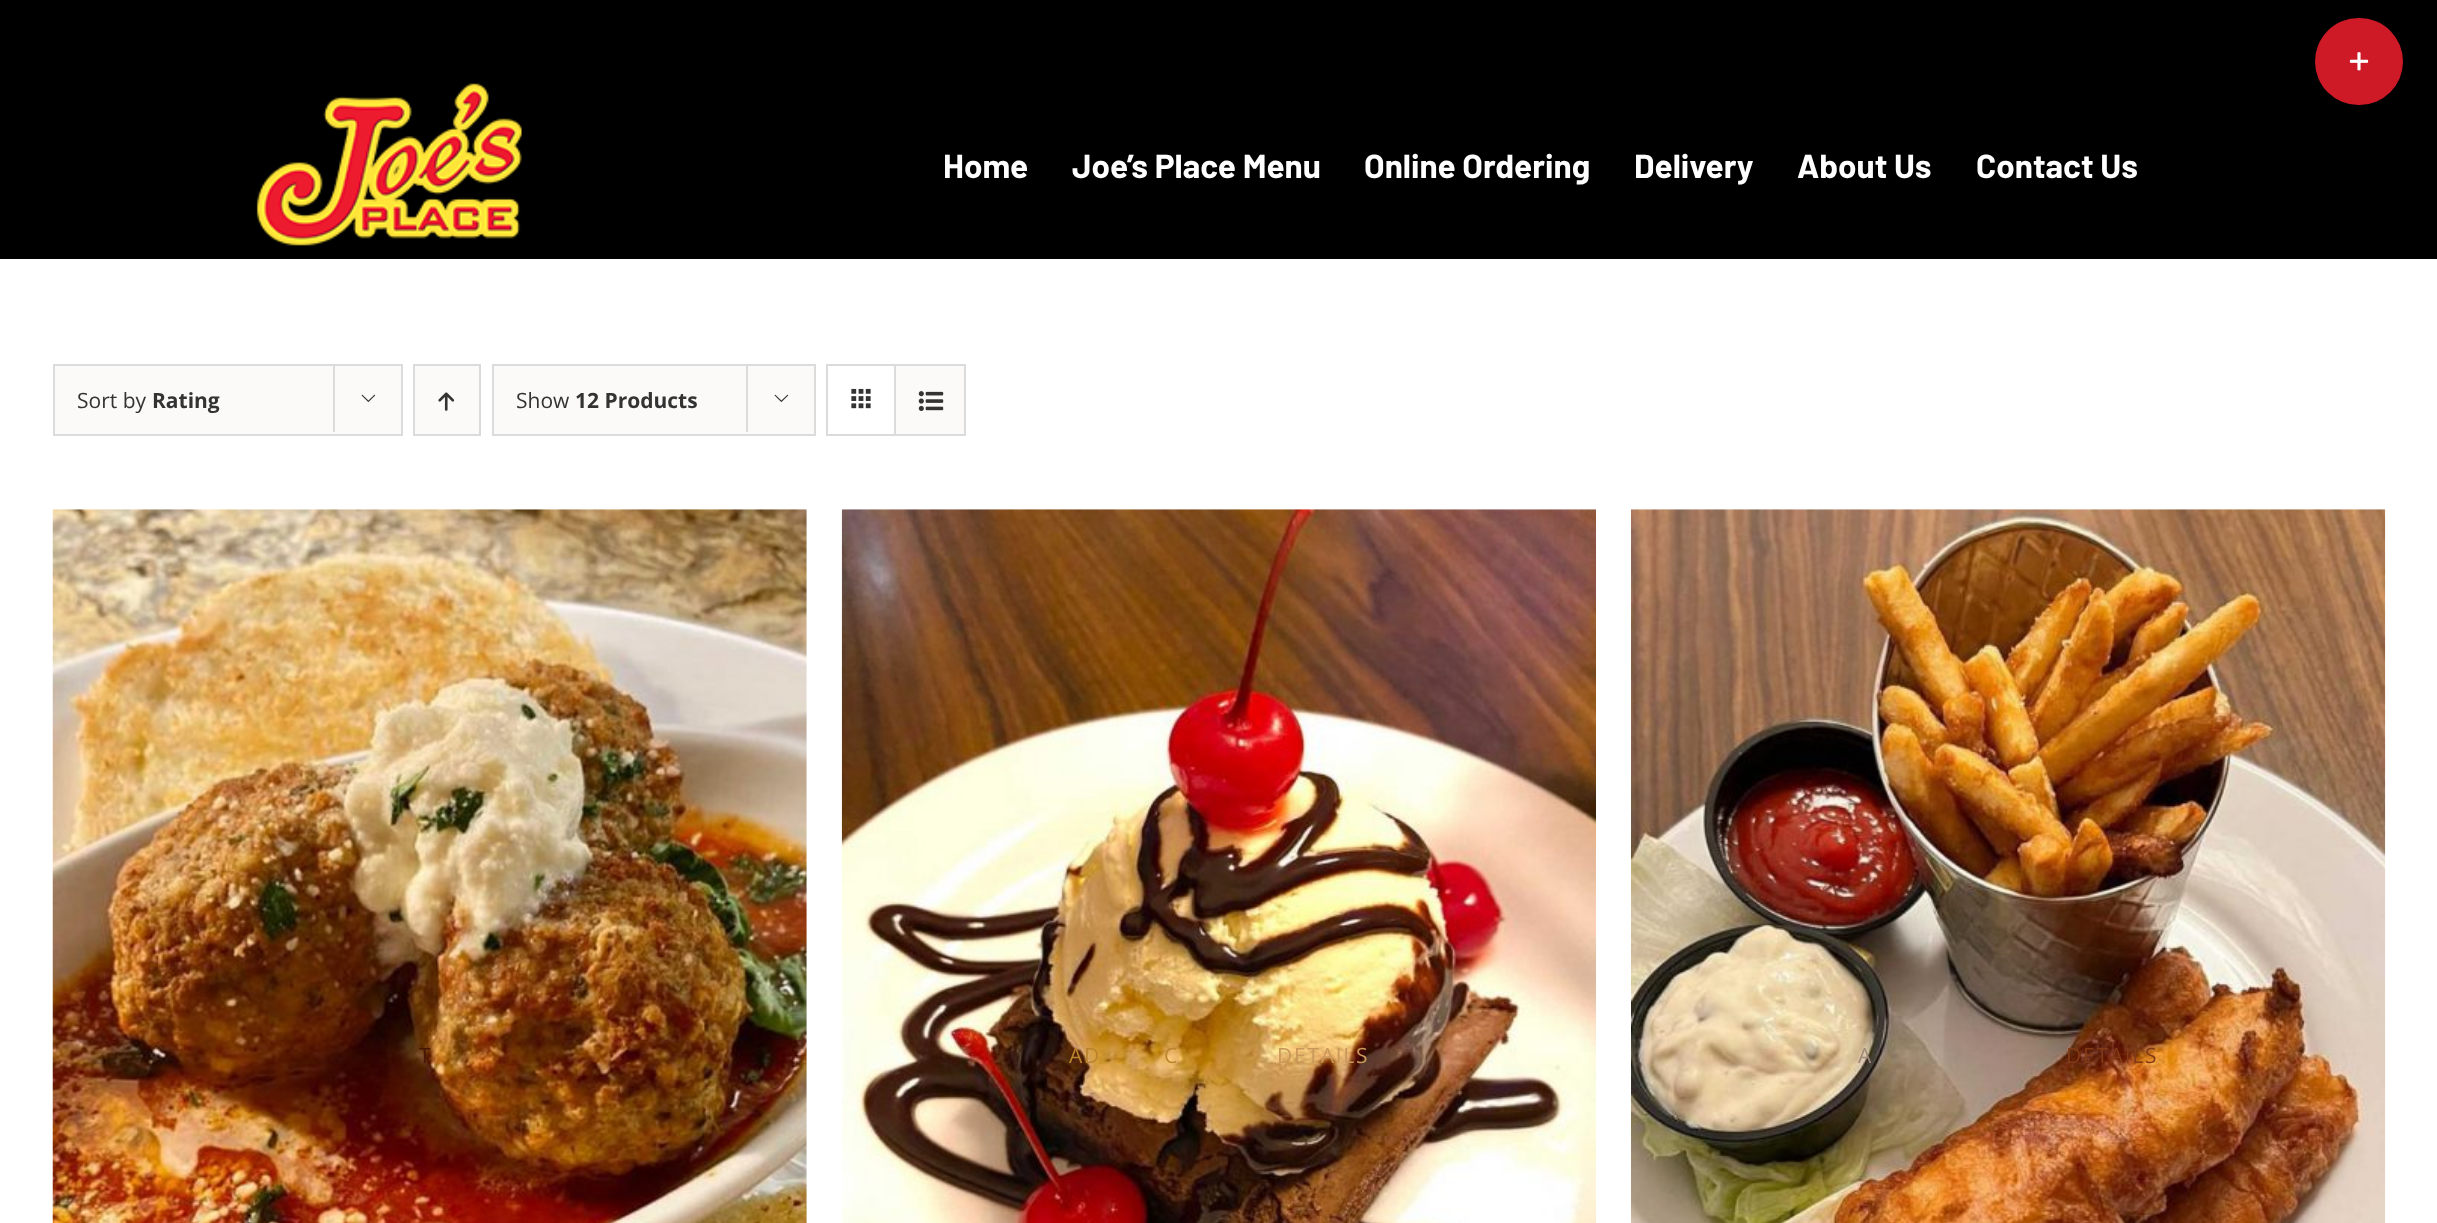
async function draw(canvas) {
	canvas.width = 2437;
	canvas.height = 1223;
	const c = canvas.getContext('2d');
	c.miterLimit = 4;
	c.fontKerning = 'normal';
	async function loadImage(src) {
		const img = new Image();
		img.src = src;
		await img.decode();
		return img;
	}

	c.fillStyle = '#fff';
	c.fillRect(0, 0, 2437, 1223);
	c.fillStyle = '#000';
	c.fillRect(0, 0, 2437, 259);
	c.fillStyle = '#ce1a26';
	c.beginPath();
	c.roundRect(2315, 18, 88, 87, 43.5);
	c.fill();
	c.drawImage(await loadImage('img1.png'), 2349, 52, 20, 19);
	c.drawImage(await loadImage('img2.png'), 256, 83, 266, 163);
	c.font = 'bold 33.25px Barlow';
	c.fillStyle = '#fff';
	for (const [text, x, y] of [
		['Home', 943, 178],
		['Joe’s Place Menu', 1072, 178],
		['Online Ordering', 1364, 178],
		['Delivery', 1634, 178],
		['About Us', 1797, 178],
		['Contact Us', 1976, 178],
	]) {
		c.fillText(text, x, y);
	}
	c.fillStyle = '#fbfaf9';
	c.beginPath();
	c.rect(54, 365, 348, 70);
	c.fill();
	c.strokeStyle = '#dbdbdb';
	c.lineWidth = 2;
	c.stroke();
	c.font = '21px Open Sans';
	c.fillStyle = '#333';
	c.fillText('Sort by', 77, 408);
	c.font = 'bold 21px Open Sans';
	c.fillText('Rating', 152, 408);
	c.fillStyle = '#dbdbdb';
	c.fillRect(333, 364, 2, 68);
	c.drawImage(await loadImage('img3.png'), 361, 394, 15, 8);
	c.fillStyle = '#fbfaf9';
	c.beginPath();
	c.rect(414, 365, 66, 70);
	c.fill();
	c.stroke();
	c.drawImage(await loadImage('img4.png'), 438, 392, 17, 19);
	c.beginPath();
	c.rect(493, 365, 322, 70);
	c.fill();
	c.stroke();
	c.font = '21px Open Sans';
	c.fillStyle = '#333';
	c.fillText('Show', 516, 408);
	c.font = 'bold 21px Open Sans';
	c.fillText('12 Products', 575, 408);
	c.fillStyle = '#dbdbdb';
	c.fillRect(746, 364, 2, 68);
	c.drawImage(await loadImage('img3.png'), 774, 394, 15, 8);
	c.strokeRect(827, 365, 138, 70);
	c.fillRect(894, 366, 2, 68);
	c.drawImage(await loadImage('img5.png'), 851, 388, 20, 21);
	c.fillStyle = '#fbfaf9';
	c.fillRect(896, 366, 68, 68);
	c.drawImage(await loadImage('img6.png'), 918, 391, 26, 20);
	c.drawImage(await loadImage('img7.png'), 52, 509, 755, 714);
	c.letterSpacing = '1.75px';
	c.font = '21px Open Sans';
	c.fillStyle = '#471605';
	c.fillText('T', 419, 1063);
	c.drawImage(await loadImage('img8.png'), 841, 509, 755, 714);
	c.fillStyle = '#bb842e';
	c.fillText('AD', 1069, 1063);
	c.fillText('C', 1164, 1063);
	c.fillStyle = '#c9985a';
	c.fillText('DETAILS', 1277, 1063);
	c.drawImage(await loadImage('img9.png'), 1631, 509, 755, 714);
	c.fillStyle = '#9e8978';
	c.fillText('A', 1858, 1063);
	c.fillStyle = '#823b16';
	c.fillText('DETAILS', 2066, 1063);
}

draw(document.querySelector('canvas'));
